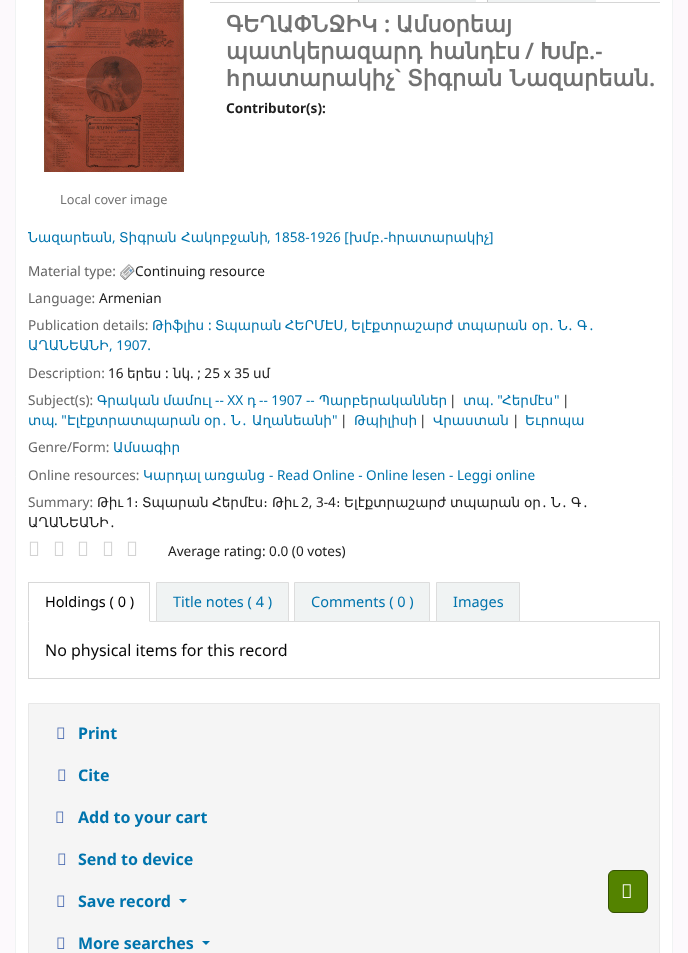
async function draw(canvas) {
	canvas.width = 688;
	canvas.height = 953;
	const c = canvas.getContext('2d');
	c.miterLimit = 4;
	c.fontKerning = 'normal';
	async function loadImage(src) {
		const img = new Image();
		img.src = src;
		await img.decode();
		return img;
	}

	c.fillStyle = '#fcf9fc';
	c.fillRect(0, 0, 688, 953);
	c.fillStyle = '#fff';
	c.beginPath();
	c.rect(15.5, -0.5, 657, 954);
	c.fill();
	c.strokeStyle = '#f0f3f3';
	c.stroke();
	for (const [x, y, w, h, color] of [
		[210, 2, 450, 1, '#d6d6d6'],
		[359, 0, 117, 2, '#f0f3f3'],
		[358, 0, 1, 2, '#c9c9c9'],
		[488, 0, 108, 2, '#f0f3f3'],
		[487, 0, 1, 2, '#c9c9c9'],
	]) {
		c.fillStyle = color;
		c.fillRect(x, y, w, h);
	}
	c.font = 'bold 22.5px DejaVu Sans';
	c.fillStyle = '#727272';
	c.fillText('ԳԵՂԱՓՆՋԻԿ', 226, 32);
	c.font = '600 22.5px Noto Sans';
	c.fillText(':', 384, 32);
	c.font = 'bold 22.5px DejaVu Sans';
	c.fillText('Ամսօրեայ', 396, 32);
	c.fillText('պատկերազարդ հանդէս', 226, 59);
	c.font = '600 22.5px Noto Sans';
	c.fillText('/', 525, 59);
	c.font = 'bold 22.5px DejaVu Sans';
	c.fillText('Խմբ', 540, 59);
	c.font = '600 22.5px Noto Sans';
	c.fillText('.-', 589, 59);
	c.fillText('h', 226, 86);
	c.font = 'bold 22.5px DejaVu Sans';
	c.fillText('րատարակիչ', 241, 86);
	c.font = '600 22.5px Noto Sans';
	c.fillText('`', 394, 86);
	c.font = 'bold 22.5px DejaVu Sans';
	c.fillText('Տիգրան Նազարեան', 407, 86);
	c.font = '600 22.5px Noto Sans';
	c.fillText('.', 649, 86);
	c.font = 'bold 13.6px Noto Sans';
	c.fillStyle = '#202020';
	c.fillText('Contributor(s):', 226, 113);
	c.font = '13.6px DejaVu Sans';
	c.fillStyle = '#0074ad';
	c.fillText('Նազարեան', 28, 242);
	c.font = '13.6px Noto Sans';
	c.fillText(',', 112, 242);
	c.font = '13.6px DejaVu Sans';
	c.fillText('Տիգրան Հակոբջանի', 119, 242);
	c.font = '13.6px Noto Sans';
	c.fillText(', 1858-1926 [', 267, 242);
	c.font = '13.6px DejaVu Sans';
	c.fillText('խմբ', 349, 242);
	c.font = '13.6px Noto Sans';
	c.fillText('.-', 380, 242);
	c.font = '13.6px DejaVu Sans';
	c.fillText('հրատարակիչ', 388, 242);
	c.font = '13.6px Noto Sans';
	c.fillText(']', 489, 242);
	c.fillStyle = '#666';
	c.fillText('Material type:', 28, 276);
	c.drawImage(await loadImage('img1.png'), 120, 264, 15, 16);
	c.fillStyle = '#202020';
	c.fillText('Continuing resource', 135, 276);
	c.fillStyle = '#666';
	c.fillText('Language:', 28, 303);
	c.fillStyle = '#202020';
	c.fillText('Armenian', 99, 303);
	c.fillStyle = '#666';
	c.fillText('Publication details:', 28, 330);
	c.font = '13.6px DejaVu Sans';
	c.fillStyle = '#0074ad';
	c.fillText('Թիֆլիս', 152, 330);
	c.font = '13.6px Noto Sans';
	c.fillText(':', 208, 330);
	c.wordSpacing = '-1px';
	c.font = '13.6px DejaVu Sans';
	c.fillText('Տպարան ՀԵՐՄԷՍ', 215, 330);
	c.wordSpacing = '0px';
	c.font = '13.6px Noto Sans';
	c.fillText(',', 344, 330);
	c.font = '13.6px DejaVu Sans';
	c.fillText('Ելէքտրաշարժ տպարան օր', 351, 330);
	c.font = '13.6px Noto Sans';
	c.fillText('․', 548, 330);
	c.font = '13.6px DejaVu Sans';
	c.fillText('Ն', 558, 330);
	c.font = '13.6px Noto Sans';
	c.fillText('․', 567, 330);
	c.font = '13.6px DejaVu Sans';
	c.fillText('Գ', 577, 330);
	c.font = '13.6px Noto Sans';
	c.fillText('․', 588, 330);
	c.font = '13.6px DejaVu Sans';
	c.fillText('ԱՂԱՆԵԱՆԻ', 28, 350);
	c.font = '13.6px Noto Sans';
	c.fillText(', 1907.', 109, 350);
	c.fillStyle = '#666';
	c.fillText('Description:', 28, 378);
	c.fillStyle = '#202020';
	c.fillText('16', 108, 378);
	c.font = '13.6px DejaVu Sans';
	c.fillText('երես', 127, 378);
	c.font = '13.6px Noto Sans';
	c.fillText(':', 165, 378);
	c.font = '13.6px DejaVu Sans';
	c.fillText('նկ', 173, 378);
	c.font = '13.6px Noto Sans';
	c.fillText('. ; 25 x 35', 190, 378);
	c.font = '13.6px DejaVu Sans';
	c.fillText('սմ', 253, 378);
	c.font = '13.6px Noto Sans';
	c.fillStyle = '#666';
	c.fillText('Subject(s):', 28, 405);
	c.font = '13.6px DejaVu Sans';
	c.fillStyle = '#0074ad';
	c.fillText('Գրական', 97, 405);
	c.fillText('մամուլ', 163, 405);
	c.font = '13.6px Noto Sans';
	c.fillText('-- XX', 215, 405);
	c.font = '13.6px DejaVu Sans';
	c.fillText('դ', 247, 405);
	c.font = '13.6px Noto Sans';
	c.fillText('-- 1907 --', 259, 405);
	c.font = '13.6px DejaVu Sans';
	c.fillText('Պարբերականներ', 319, 405);
	c.font = '13.6px Noto Sans';
	c.fillStyle = '#202020';
	c.fillText('|', 449, 405);
	c.font = '13.6px DejaVu Sans';
	c.fillStyle = '#0074ad';
	c.fillText('տպ', 463, 405);
	c.font = '13.6px Noto Sans';
	c.fillText('. "', 490, 405);
	c.font = '13.6px DejaVu Sans';
	c.fillText('Հերմէս', 502, 405);
	c.font = '13.6px Noto Sans';
	c.fillText('"', 554, 405);
	c.fillStyle = '#202020';
	c.fillText('|', 562, 405);
	c.font = '13.6px DejaVu Sans';
	c.fillStyle = '#0074ad';
	c.fillText('տպ', 28, 425);
	c.font = '13.6px Noto Sans';
	c.fillText('. "', 54, 425);
	c.font = '13.6px DejaVu Sans';
	c.fillText('Էլէքտրատպարան', 67, 425);
	c.fillText('օր', 204, 425);
	c.font = '13.6px Noto Sans';
	c.fillText('․', 221, 425);
	c.font = '13.6px DejaVu Sans';
	c.fillText('Ն', 231, 425);
	c.font = '13.6px Noto Sans';
	c.fillText('․', 241, 425);
	c.font = '13.6px DejaVu Sans';
	c.fillText('Աղանեանի', 252, 425);
	c.font = '13.6px Noto Sans';
	c.fillText('"', 332, 425);
	c.fillStyle = '#202020';
	c.fillText('|', 340, 425);
	c.font = '13.6px DejaVu Sans';
	c.fillStyle = '#0074ad';
	c.fillText('Թպիլիսի', 354, 425);
	c.font = '13.6px Noto Sans';
	c.fillStyle = '#202020';
	c.fillText('|', 419, 425);
	c.font = '13.6px DejaVu Sans';
	c.fillStyle = '#0074ad';
	c.fillText('Վրաստան', 433, 425);
	c.font = '13.6px Noto Sans';
	c.fillStyle = '#202020';
	c.fillText('|', 512, 425);
	c.font = '13.6px DejaVu Sans';
	c.fillStyle = '#0074ad';
	c.fillText('Եւրոպա', 525, 425);
	c.font = '13.6px Noto Sans';
	c.fillStyle = '#666';
	c.fillText('Genre/Form:', 28, 452);
	c.font = '13.6px DejaVu Sans';
	c.fillStyle = '#0074ad';
	c.fillText('Ամսագիր', 113, 452);
	c.font = '13.6px Noto Sans';
	c.fillStyle = '#666';
	c.fillText('Online resources:', 28, 480);
	c.font = '13.6px DejaVu Sans';
	c.fillStyle = '#0074ad';
	c.fillText('Կարդալ', 143, 480);
	c.fillText('առցանց', 204, 480);
	c.font = '13.6px Noto Sans';
	c.fillText('- Read Online - Online lesen - Leggi online', 269, 480);
	c.fillStyle = '#666';
	c.fillText('Summary:', 28, 507);
	c.font = '13.6px DejaVu Sans';
	c.fillStyle = '#202020';
	c.fillText('Թիւ', 97, 507);
	c.font = '13.6px Noto Sans';
	c.fillText('1', 126, 507);
	c.font = '13.6px DejaVu Sans';
	for (const [text, x, y] of [
		['։', 134, 507],
		['Տպարան', 142, 507],
		['Հերմէս։', 212, 507],
		['Թիւ', 272, 507],
	]) {
		c.fillText(text, x, y);
	}
	c.font = '13.6px Noto Sans';
	c.fillText('2, 3-4', 301, 507);
	c.font = '13.6px DejaVu Sans';
	for (const [text, x, y] of [
		['։', 336, 507],
		['Ելէքտրաշարժ', 344, 507],
		['տպարան', 450, 507],
		['օր', 524, 507],
	]) {
		c.fillText(text, x, y);
	}
	c.font = '13.6px Noto Sans';
	c.fillText('․', 541, 507);
	c.font = '13.6px DejaVu Sans';
	c.fillText('Ն', 551, 507);
	c.font = '13.6px Noto Sans';
	c.fillText('․', 561, 507);
	c.font = '13.6px DejaVu Sans';
	c.fillText('Գ', 571, 507);
	c.font = '13.6px Noto Sans';
	c.fillText('․', 582, 507);
	c.font = '13.6px DejaVu Sans';
	c.fillText('ԱՂԱՆԵԱՆԻ', 28, 527);
	c.font = '13.6px Noto Sans';
	c.fillText('․', 109, 527);
	c.drawImage(await loadImage('img2.png'), 44, 0, 140, 172);
	c.font = '12.75px Noto Sans';
	c.fillStyle = '#727272';
	c.fillText('Local cover image', 60, 204);
	c.drawImage(await loadImage('img3.png'), 29, 541, 10, 15);
	c.drawImage(await loadImage('img3.png'), 54, 541, 10, 15);
	c.drawImage(await loadImage('img3.png'), 78, 541, 10, 15);
	c.drawImage(await loadImage('img3.png'), 103, 541, 10, 15);
	c.drawImage(await loadImage('img3.png'), 127, 541, 10, 15);
	c.font = '13.6px Noto Sans';
	c.fillStyle = '#202020';
	c.fillText('Average rating: 0.0 (0 votes)', 168, 556);
	c.fillStyle = '#ddd';
	c.fillRect(150, 621, 510, 1);
	c.fillStyle = '#d8d8d8';
	c.fillRect(28, 582, 122, 1);
	c.beginPath();
	c.moveTo(150, 582);
	c.lineTo(150, 622);
	c.lineTo(149, 621);
	c.lineTo(149, 583);
	c.closePath();
	c.fill();
	c.beginPath();
	c.moveTo(28, 622);
	c.lineTo(28, 582);
	c.lineTo(29, 583);
	c.lineTo(29, 621);
	c.closePath();
	c.fill();
	c.font = '14.5px Noto Sans';
	c.fillStyle = '#000';
	c.fillText('Holdings ( 0 )', 45, 607);
	c.fillStyle = '#f0f3f3';
	c.beginPath();
	c.rect(156.5, 582.5, 132, 39);
	c.fill();
	c.strokeStyle = '#ddd';
	c.stroke();
	c.fillStyle = '#0074ad';
	c.fillText('Title notes ( 4 )', 173, 607);
	c.fillStyle = '#f0f3f3';
	c.beginPath();
	c.rect(294.5, 582.5, 135, 39);
	c.fill();
	c.stroke();
	c.fillStyle = '#0074ad';
	c.fillText('Comments ( 0 )', 311, 607);
	c.fillStyle = '#f0f3f3';
	c.beginPath();
	c.rect(436.5, 582.5, 83, 39);
	c.fill();
	c.stroke();
	c.fillStyle = '#0074ad';
	c.fillText('Images', 453, 607);
	for (const [x, y, w, h, color] of [
		[659, 622, 1, 57, '#d8d8d8'],
		[28, 678, 632, 1, '#d8d8d8'],
		[28, 622, 1, 57, '#d8d8d8'],
	]) {
		c.fillStyle = color;
		c.fillRect(x, y, w, h);
	}
	c.font = '16px Noto Sans';
	c.fillStyle = '#070707';
	c.fillText('No physical items for this record', 45, 656);
	c.fillStyle = '#f5f5f5';
	c.beginPath();
	c.rect(28.5, 703.5, 631, 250);
	c.fill();
	c.strokeStyle = '#e8e8e8';
	c.stroke();
	c.drawImage(await loadImage('img4.png'), 57, 727, 8, 12);
	c.font = 'bold 16px Noto Sans';
	c.fillStyle = '#0074ad';
	c.fillText('Print', 78, 739);
	c.drawImage(await loadImage('img4.png'), 58, 769, 8, 12);
	c.fillText('Cite', 78, 781);
	c.drawImage(await loadImage('img4.png'), 56, 811, 8, 12);
	c.fillText('Add to your cart', 78, 823);
	c.drawImage(await loadImage('img4.png'), 58, 853, 8, 12);
	c.fillText('Send to device', 78, 865);
	c.drawImage(await loadImage('img4.png'), 57, 895, 8, 12);
	c.fillText('Save record', 78, 907);
	c.beginPath();
	c.moveTo(179, 899);
	c.lineTo(187, 899);
	c.lineTo(183, 903);
	c.closePath();
	c.fill();
	c.drawImage(await loadImage('img4.png'), 57, 937, 8, 12);
	c.fillText('More searches', 78, 949);
	c.beginPath();
	c.moveTo(202, 941);
	c.lineTo(210, 941);
	c.lineTo(206, 945);
	c.closePath();
	c.fill();
	c.fillStyle = '#548300';
	c.beginPath();
	c.roundRect(608.5, 870.5, 39, 42, 5.5);
	c.fill();
	c.strokeStyle = '#335000';
	c.stroke();
	c.drawImage(await loadImage('img5.png'), 622, 884, 9, 14);
}

draw(document.querySelector('canvas'));
